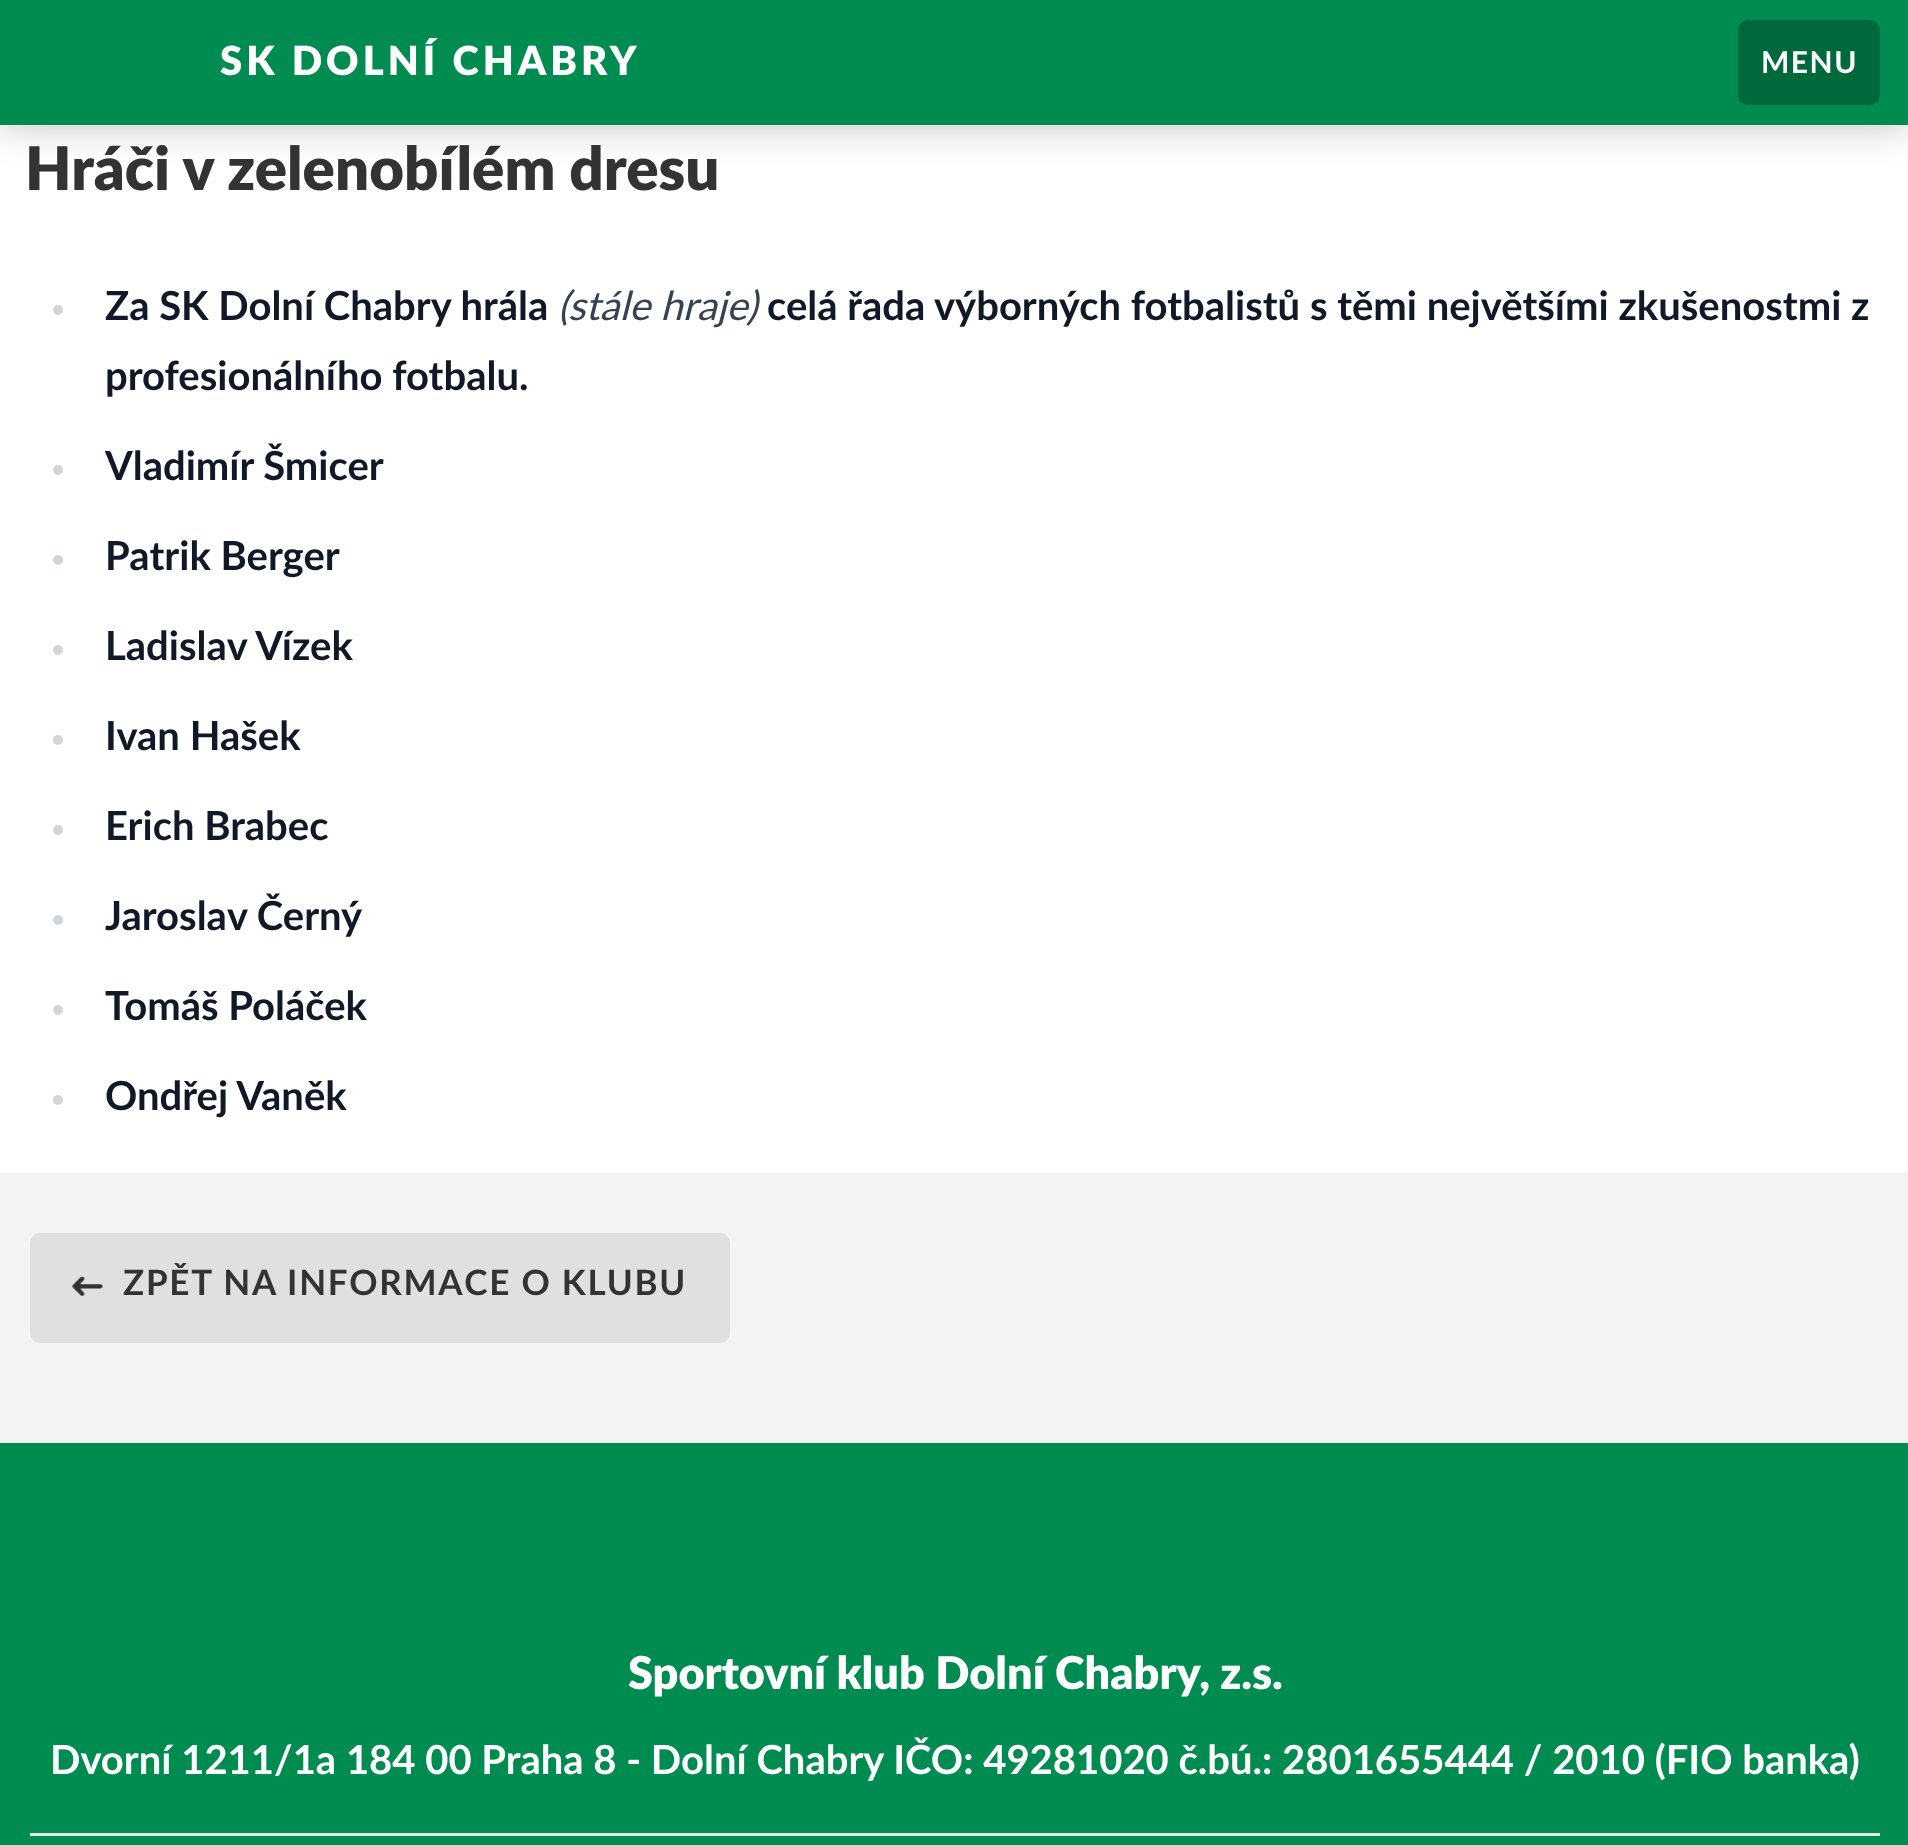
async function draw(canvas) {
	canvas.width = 1908;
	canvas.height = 1845;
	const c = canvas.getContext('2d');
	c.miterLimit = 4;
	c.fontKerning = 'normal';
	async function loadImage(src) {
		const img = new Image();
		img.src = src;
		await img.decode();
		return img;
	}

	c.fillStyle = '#f3f3f3';
	c.fillRect(0, 0, 1908, 1845);
	c.fillStyle = '#fff';
	c.fillRect(0, 125, 1908, 1048);
	c.fillStyle = '#00000040';
	c.filter = 'blur(20px)';
	c.beginPath();
	c.rect(0, 0, 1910, 125);
	c.fill();
	c.filter = 'none';
	c.fillStyle = '#008c50';
	c.fillRect(0, 0, 1908, 125);
	c.save();
	c.beginPath();
	c.rect(220, 38, 1518, 50);
	c.clip();
	c.letterSpacing = '4px';
	c.font = '900 40px Lato';
	c.fillStyle = '#fff';
	c.fillText('SK DOLNÍ CHABRY', 220, 75);
	c.restore();
	c.fillStyle = '#00693c';
	c.beginPath();
	c.roundRect(1738, 20, 142, 85, 10);
	c.fill();
	c.letterSpacing = '1.5px';
	c.font = 'bold 30px Lato';
	c.fillStyle = '#fff';
	c.fillText('MENU', 1761, 73);
	c.letterSpacing = '0px';
	c.font = '900 60px Lato';
	c.fillStyle = '#333';
	c.fillText('Hráči v zelenobílém dresu', 25, 190);
	c.fillStyle = '#d1d5db';
	c.beginPath();
	c.arc(58, 310, 5, 0, 2 * Math.PI);
	c.fill();
	c.font = 'bold 40px Lato';
	c.fillStyle = '#111827';
	c.fillText('Za SK Dolní Chabry hrála', 105, 320);
	c.font = 'italic 40px Lato';
	c.fillStyle = '#374151';
	c.fillText('(stále hraje)', 558, 320);
	c.font = 'bold 40px Lato';
	c.fillStyle = '#111827';
	c.fillText('celá řada výborných fotbalistů s těmi největšími zkušenostmi z', 767, 320);
	c.fillText('profesionálního fotbalu.', 105, 390);
	c.fillStyle = '#d1d5db';
	c.beginPath();
	c.arc(58, 470, 5, 0, 2 * Math.PI);
	c.fill();
	c.fillStyle = '#111827';
	c.fillText('Vladimír Šmicer', 105, 480);
	c.fillStyle = '#d1d5db';
	c.beginPath();
	c.arc(58, 560, 5, 0, 2 * Math.PI);
	c.fill();
	c.fillStyle = '#111827';
	c.fillText('Patrik Berger', 105, 570);
	c.fillStyle = '#d1d5db';
	c.beginPath();
	c.arc(58, 650, 5, 0, 2 * Math.PI);
	c.fill();
	c.fillStyle = '#111827';
	c.fillText('Ladislav Vízek', 105, 660);
	c.fillStyle = '#d1d5db';
	c.beginPath();
	c.arc(58, 740, 5, 0, 2 * Math.PI);
	c.fill();
	c.fillStyle = '#111827';
	c.fillText('Ivan Hašek', 105, 750);
	c.fillStyle = '#d1d5db';
	c.beginPath();
	c.arc(58, 830, 5, 0, 2 * Math.PI);
	c.fill();
	c.fillStyle = '#111827';
	c.fillText('Erich Brabec', 105, 840);
	c.fillStyle = '#d1d5db';
	c.beginPath();
	c.arc(58, 920, 5, 0, 2 * Math.PI);
	c.fill();
	c.fillStyle = '#111827';
	c.fillText('Jaroslav Černý', 105, 930);
	c.fillStyle = '#d1d5db';
	c.beginPath();
	c.arc(58, 1010, 5, 0, 2 * Math.PI);
	c.fill();
	c.fillStyle = '#111827';
	c.fillText('Tomáš Poláček', 105, 1020);
	c.fillStyle = '#d1d5db';
	c.beginPath();
	c.arc(58, 1100, 5, 0, 2 * Math.PI);
	c.fill();
	c.fillStyle = '#111827';
	c.fillText('Ondřej Vaněk', 105, 1110);
	c.fillStyle = '#e0e0e0';
	c.beginPath();
	c.roundRect(30, 1233, 700, 110, 10);
	c.fill();
	c.drawImage(await loadImage('img1.png'), 72, 1276, 31, 20);
	c.letterSpacing = '1.75px';
	c.font = 'bold 35px Lato';
	c.fillStyle = '#333';
	c.fillText('ZPĚT NA INFORMACE O KLUBU', 123, 1295);
	c.fillStyle = '#008c50';
	c.fillRect(0, 1443, 1908, 402);
	c.letterSpacing = '0px';
	c.font = '900 45px Lato';
	c.fillStyle = '#fff';
	c.fillText('Sportovní klub Dolní Chabry, z.s.', 628, 1689);
	c.font = 'bold 40px Lato';
	c.fillText('Dvorní 1211/1a 184 00 Praha 8 - Dolní Chabry IČO: 49281020 č.bú.: 2801655444 / 2010 (FIO banka)', 50, 1774);
	c.fillStyle = '#e5e7eb';
	c.fillRect(30, 1833, 1850, 3);
}

draw(document.querySelector('canvas'));
